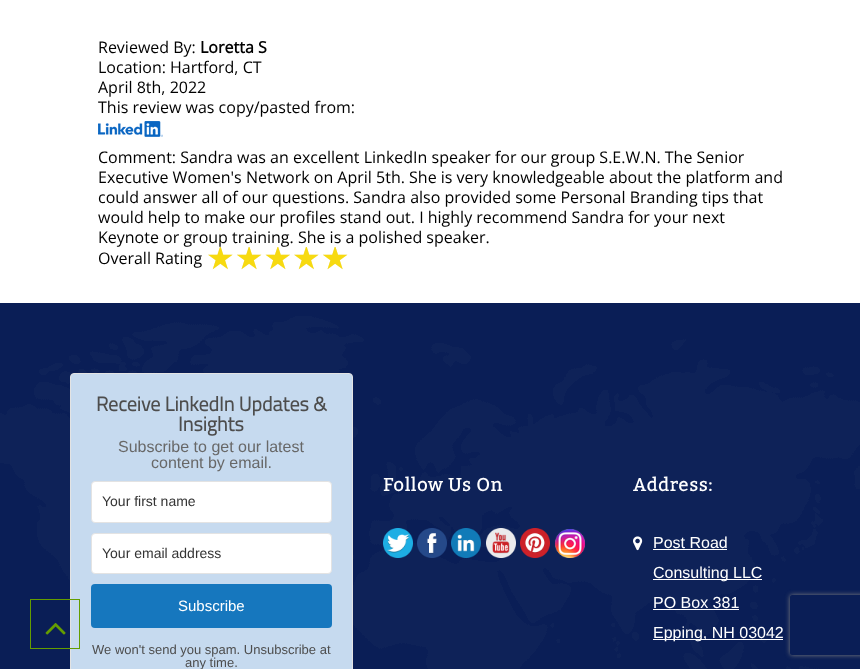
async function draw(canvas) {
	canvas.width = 860;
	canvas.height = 669;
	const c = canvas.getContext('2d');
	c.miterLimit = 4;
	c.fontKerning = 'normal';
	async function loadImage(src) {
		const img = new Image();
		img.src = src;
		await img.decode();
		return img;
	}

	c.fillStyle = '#fff';
	c.fillRect(0, 0, 860, 669);
	c.font = '16px Open Sans';
	c.fillStyle = '#000';
	c.fillText('Reviewed By:', 98, 53);
	c.font = 'bold 16px Open Sans';
	c.fillText('Loretta S', 200, 53);
	c.font = '16px Open Sans';
	for (const [text, x, y] of [
		['Location: Hartford, CT', 98, 73],
		['April 8th, 2022', 98, 93],
		['This review was copy/pasted from:', 98, 113],
	]) {
		c.fillText(text, x, y);
	}
	c.drawImage(await loadImage('img1.png'), 98, 121, 65, 16);
	for (const [text, x, y] of [
		['Comment: Sandra was an excellent LinkedIn speaker for our group S.E.W.N. The Senior', 98, 163],
		['Executive Women\'s Network on April 5th. She is very knowledgeable about the platform and', 98, 183],
		['could answer all of our questions. Sandra also provided some Personal Branding tips that', 98, 203],
		['would help to make our profiles stand out. I highly recommend Sandra for your next', 98, 223],
		['Keynote or group training. She is a polished speaker.', 98, 243],
		['Overall Rating', 98, 264],
	]) {
		c.fillText(text, x, y);
	}
	c.save();
	c.beginPath();
	c.rect(206, 247, 144, 26);
	c.clip();
	c.font = '32px DejaVu Sans';
	c.fillStyle = '#eee';
	c.fillText('★★★★★', 206, 269);
	c.fillStyle = '#f7da10';
	c.fillText('★★★★★', 206, 269);
	c.restore();
	c.fillStyle = '#0a1e56';
	c.fillRect(0, 303, 860, 366);
	c.drawImage(await loadImage('img3.png'), 0, 316, 860, 353);
	c.fillStyle = '#c6daef';
	c.beginPath();
	c.roundRect(70.5, 373.5, 282, 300, 3.5);
	c.fill();
	c.strokeStyle = '#e3e3e3';
	c.stroke();
	c.strokeStyle = '#649d00';
	c.strokeRect(30.5, 599.5, 49, 49);
	c.drawImage(await loadImage('img2.png'), 45, 623, 21, 12);
	c.font = 'bold 20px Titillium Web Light';
	c.fillStyle = '#4d4d4d';
	c.fillText('Receive LinkedIn Updates &', 96, 411);
	c.fillText('Insights', 178, 431);
	c.font = '16px Liberation Sans';
	c.fillStyle = '#686868';
	c.fillText('Subscribe to get our latest', 118, 452);
	c.fillText('content by email.', 151, 468);
	c.fillStyle = '#fff';
	c.beginPath();
	c.roundRect(91.5, 481.5, 240, 41, 3.5);
	c.fill();
	c.strokeStyle = '#e3e3e3';
	c.stroke();
	c.font = '14px Liberation Sans';
	c.fillStyle = '#333';
	c.fillText('Your first name', 102, 506);
	c.fillStyle = '#fff';
	c.beginPath();
	c.roundRect(91.5, 533.5, 240, 40, 3.5);
	c.fill();
	c.stroke();
	c.fillStyle = '#333';
	c.fillText('Your email address', 102, 558);
	c.fillStyle = '#1677be';
	c.beginPath();
	c.roundRect(91, 584, 241, 44, 4);
	c.fill();
	c.font = '15px Liberation Sans';
	c.fillStyle = '#fff';
	c.fillText('Subscribe', 178, 611);
	c.font = '13px Liberation Sans';
	c.fillStyle = '#4d4d4d';
	c.fillText('We won\'t send you spam. Unsubscribe at', 92, 654);
	c.fillText('any time.', 185, 667);
	c.letterSpacing = '1px';
	c.font = 'bold 18px Bitter';
	c.fillStyle = '#fff';
	c.fillText('Follow Us On', 383, 491);
	c.drawImage(await loadImage('img4.png'), 383, 528, 30, 30);
	c.drawImage(await loadImage('img5.png'), 417, 528, 30, 30);
	c.drawImage(await loadImage('img6.png'), 451, 528, 30, 30);
	c.drawImage(await loadImage('img7.png'), 486, 528, 30, 30);
	c.drawImage(await loadImage('img8.png'), 520, 528, 30, 30);
	c.drawImage(await loadImage('img9.png'), 555, 529, 30, 29);
	c.fillText('Address:', 633, 491);
	c.drawImage(await loadImage('img10.png'), 633, 536, 10, 15);
	c.letterSpacing = '0px';
	c.font = '16px Liberation Sans';
	c.fillText('Post Road', 653, 548);
	c.fillRect(653, 549, 74, 1);
	c.fillRect(653, 579, 109, 1);
	c.fillText('Consulting LLC', 653, 578);
	c.fillText('PO Box 381', 653, 608);
	c.fillRect(653, 609, 86, 1);
	c.save();
	c.beginPath();
	c.moveTo(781, 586);
	c.lineTo(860, 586);
	c.lineTo(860, 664);
	c.lineTo(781, 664);
	c.closePath();
	c.moveTo(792, 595);
	c.lineTo(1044, 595);
	c.bezierCurveTo(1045, 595, 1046, 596, 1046, 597);
	c.lineTo(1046, 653);
	c.bezierCurveTo(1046, 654, 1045, 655, 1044, 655);
	c.lineTo(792, 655);
	c.bezierCurveTo(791, 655, 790, 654, 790, 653);
	c.lineTo(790, 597);
	c.bezierCurveTo(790, 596, 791, 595, 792, 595);
	c.closePath();
	c.clip('evenodd');
	c.fillStyle = '#808080';
	c.filter = 'blur(2.5px)';
	c.beginPath();
	c.roundRect(790, 595, 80, 60, 2);
	c.fill();
	c.filter = 'none';
	c.restore();
	c.fillRect(653, 639, 130, 1);
	c.fillText('Epping, NH 03042', 653, 638);
}

draw(document.querySelector('canvas'));
